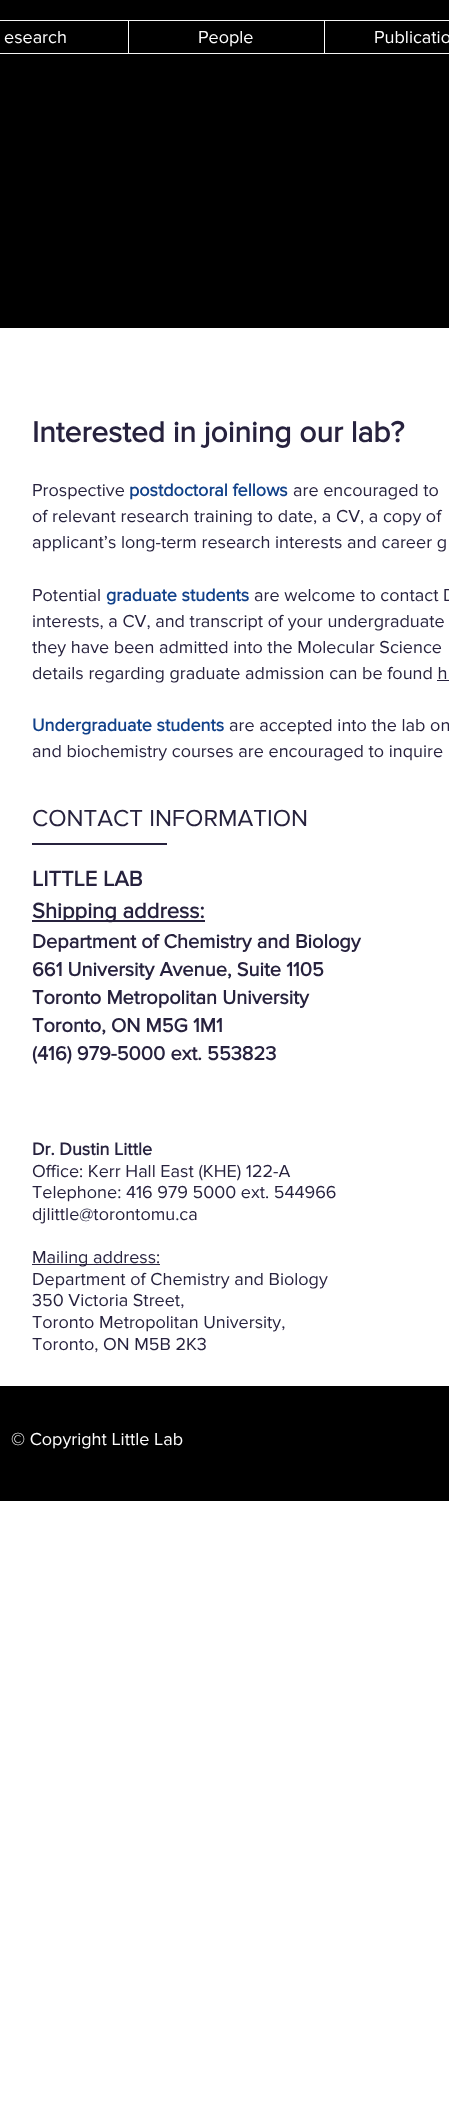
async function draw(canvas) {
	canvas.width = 449;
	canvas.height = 2122;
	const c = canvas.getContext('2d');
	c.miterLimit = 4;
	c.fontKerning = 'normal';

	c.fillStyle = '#fff';
	c.fillRect(0, 0, 449, 2122);
	c.fillStyle = '#000';
	c.fillRect(0, 0, 449, 328);
	c.strokeStyle = '#f5f5f5';
	c.strokeRect(-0.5, 20.5, 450, 33);
	c.font = '18px "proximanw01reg"';
	c.fillStyle = '#fff';
	c.fillText('esearch', 4, 43);
	c.fillRect(128, 21, 1, 32);
	c.fillText('People', 198, 43);
	c.fillRect(324, 21, 1, 32);
	c.fillText('Publicatio', 374, 43);
	c.font = 'bold 30px "proximanw01reg"';
	c.fillStyle = '#27223e';
	c.fillText('Interested in joining our lab?', 32, 442);
	c.font = '18px "proximanw01reg"';
	c.fillText('Prospective', 32, 496);
	c.font = 'bold 18px "proximanw01reg"';
	c.fillStyle = '#11418a';
	c.fillText('postdoctoral fellows', 129, 496);
	c.font = '18px "proximanw01reg"';
	c.fillStyle = '#27223e';
	for (const [text, x, y] of [
		['are encouraged to', 293, 496],
		['of relevant research training to date, a CV, a copy of', 32, 522],
		['applicant’s long-term research interests and career g', 32, 548],
		['Potential', 32, 601],
	]) {
		c.fillText(text, x, y);
	}
	c.font = 'bold 18px "proximanw01reg"';
	c.fillStyle = '#11418a';
	c.fillText('graduate students', 106, 601);
	c.font = '18px "proximanw01reg"';
	c.fillStyle = '#27223e';
	for (const [text, x, y] of [
		['are welcome to contact D', 254, 601],
		['interests, a CV, and transcript of your undergraduate', 32, 627],
		['they have been admitted into the Molecular Science', 32, 653],
		['details regarding graduate admission can be found h', 32, 679],
	]) {
		c.fillText(text, x, y);
	}
	c.fillRect(437, 680, 12, 1);
	c.font = 'bold 18px "proximanw01reg"';
	c.fillStyle = '#11418a';
	c.fillText('Undergraduate students', 32, 731);
	c.font = '18px "proximanw01reg"';
	c.fillStyle = '#27223e';
	c.fillText('are accepted into the lab on', 229, 731);
	c.fillText('and biochemistry courses are encouraged to inquire', 32, 757);
	c.font = '24px "proximanw01reg"';
	c.fillText('CONTACT INFORMATION', 32, 826);
	c.fillRect(32, 843, 135, 2);
	c.font = 'bold 22px "proximanw01reg"';
	c.fillText('LITTLE LAB', 32, 886);
	c.fillRect(32, 920, 173, 2);
	c.fillText('Shipping address:', 32, 918);
	c.font = 'bold 20px "proximanw01reg"';
	for (const [text, x, y] of [
		['Department of Chemistry and Biology', 32, 948],
		['661 University Avenue, Suite 1105', 32, 976],
		['Toronto Metropolitan University', 32, 1004],
		['Toronto, ON M5G 1M1', 32, 1032],
		['(416) 979-5000 ext. 553823', 32, 1060],
	]) {
		c.fillText(text, x, y);
	}
	c.font = 'bold 18px "proximanw01reg"';
	c.fillText('Dr. Dustin Little', 32, 1155);
	c.font = '18px "proximanw01reg"';
	for (const [text, x, y] of [
		['Office: Kerr Hall East (KHE) 122-A', 32, 1177],
		['Telephone: 416 979 5000 ext. 544966', 32, 1198],
		['djlittle@torontomu.ca', 32, 1220],
	]) {
		c.fillText(text, x, y);
	}
	c.fillRect(32, 1264, 128, 1);
	for (const [text, x, y] of [
		['Mailing address:', 32, 1263],
		['Department of Chemistry and Biology', 32, 1285],
		['350 Victoria Street,', 32, 1306],
		['Toronto Metropolitan University,', 32, 1328],
		['Toronto, ON M5B 2K3', 32, 1350],
	]) {
		c.fillText(text, x, y);
	}
	c.fillStyle = '#000';
	c.fillRect(0, 1386, 449, 115);
	c.fillStyle = '#fff';
	c.fillText('© Copyright Little Lab', 11, 1445);
}

draw(document.querySelector('canvas'));
